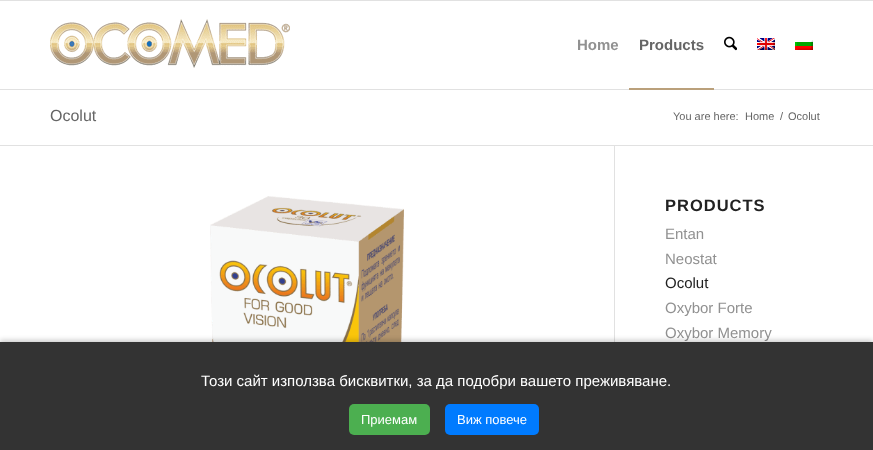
async function draw(canvas) {
	canvas.width = 873;
	canvas.height = 450;
	const c = canvas.getContext('2d');
	c.miterLimit = 4;
	c.fontKerning = 'normal';
	async function loadImage(src) {
		const img = new Image();
		img.src = src;
		await img.decode();
		return img;
	}

	c.fillStyle = '#fff';
	c.fillRect(0, 0, 873, 450);
	c.fillStyle = '#e1e1e1';
	c.fillRect(0, 0, 873, 1);
	c.fillRect(0, 89, 873, 1);
	c.drawImage(await loadImage('img1.png'), 50, 19, 240, 49);
	c.font = 'bold 15px Liberation Sans';
	c.fillStyle = '#919191';
	c.fillText('Home', 577, 50);
	c.fillStyle = '#666';
	c.fillText('Products', 639, 50);
	c.fillStyle = '#baa07b';
	c.fillRect(629, 88, 85, 2);
	c.drawImage(await loadImage('img2.png'), 724, 36, 13, 15);
	c.drawImage(await loadImage('img3.png'), 757, 38, 18, 12);
	c.drawImage(await loadImage('img4.png'), 795, 40, 18, 10);
	c.font = '16px Liberation Sans';
	c.fillStyle = '#666';
	c.fillText('Ocolut', 50, 121);
	c.font = '11px Liberation Sans';
	for (const [text, x, y] of [
		['You are here:', 673, 120],
		['Home', 745, 120],
		['/', 780, 120],
		['Ocolut', 788, 120],
	]) {
		c.fillText(text, x, y);
	}
	c.fillStyle = '#e1e1e1';
	c.fillRect(0, 145, 873, 1);
	c.fillRect(614, 146, 1, 196);
	c.drawImage(await loadImage('img5.png'), 210, 196, 194, 146);
	c.letterSpacing = '1px';
	c.font = 'bold 16.5px Liberation Sans';
	c.fillStyle = '#222';
	c.fillText('PRODUCTS', 665, 211);
	c.letterSpacing = '0px';
	c.font = '15px Liberation Sans';
	c.fillStyle = '#919191';
	c.fillText('Entan', 665, 239);
	c.fillText('Neostat', 665, 264);
	c.fillStyle = '#222';
	c.fillText('Ocolut', 665, 288);
	c.fillStyle = '#919191';
	c.fillText('Oxybor Forte', 665, 313);
	c.fillText('Oxybor Memory', 665, 338);
	c.fillStyle = '#00000033';
	c.filter = 'blur(2.5px)';
	c.beginPath();
	c.rect(0, 340, 873, 108);
	c.fill();
	c.filter = 'none';
	c.fillStyle = '#333';
	c.fillRect(0, 342, 873, 108);
	c.fillStyle = '#fff';
	c.fillText('Този сайт използва бисквитки, за да подобри вашето преживяване.', 201, 386);
	c.fillStyle = '#4caf50';
	c.beginPath();
	c.roundRect(349, 404, 81, 31, 5);
	c.fill();
	c.font = '13px Liberation Sans';
	c.fillStyle = '#fff';
	c.fillText('Приемам', 361, 424);
	c.fillStyle = '#007bff';
	c.beginPath();
	c.roundRect(445, 404, 94, 31, 5);
	c.fill();
	c.fillStyle = '#fff';
	c.fillText('Виж повече', 457, 424);
}

draw(document.querySelector('canvas'));
